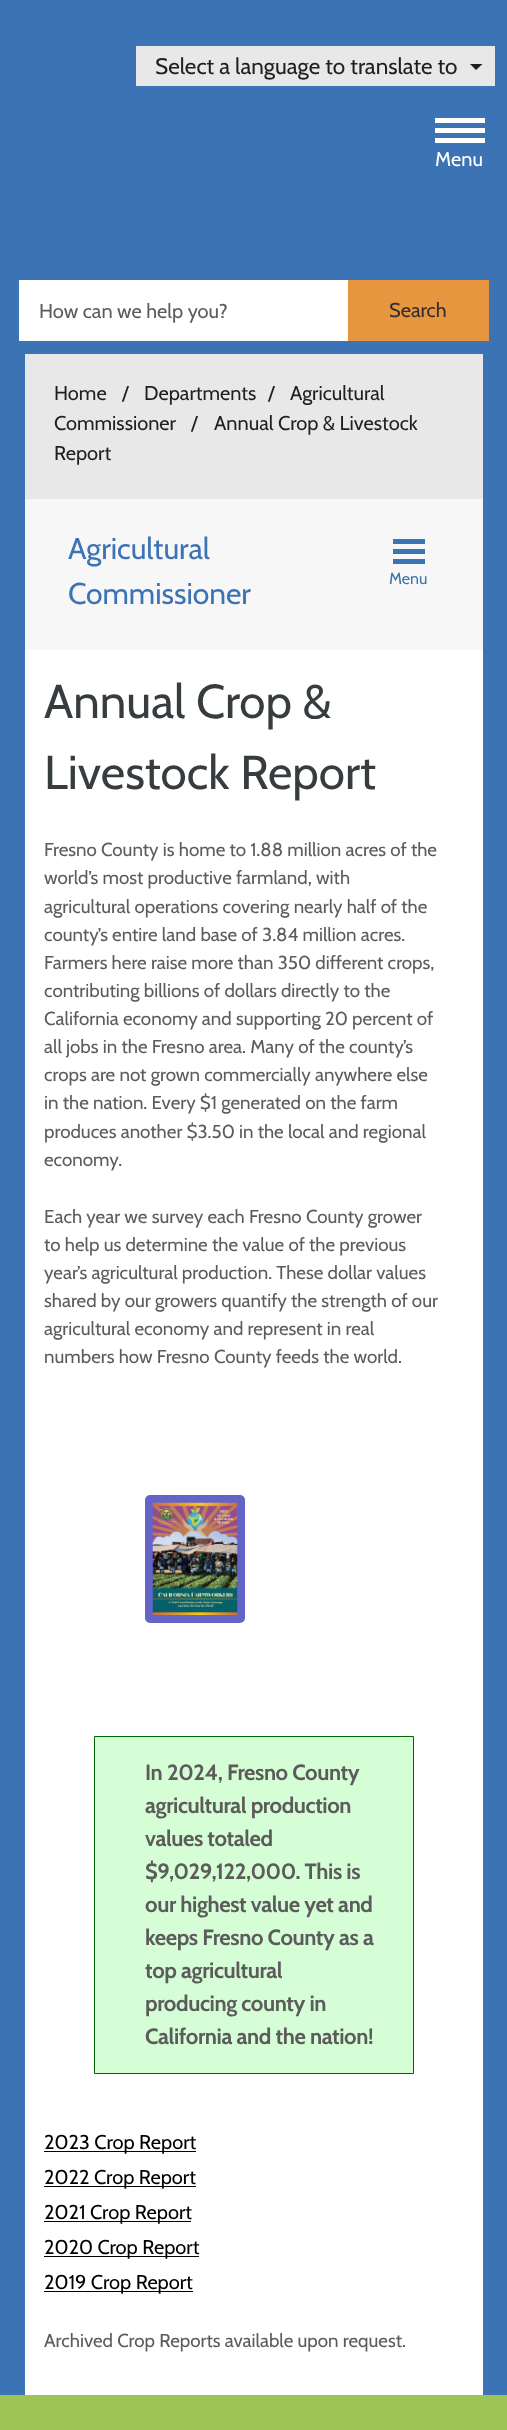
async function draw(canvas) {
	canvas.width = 507;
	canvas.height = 2430;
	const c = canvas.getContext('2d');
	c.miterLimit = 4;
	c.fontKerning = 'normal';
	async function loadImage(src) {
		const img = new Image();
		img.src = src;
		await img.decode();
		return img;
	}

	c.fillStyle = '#3c73b5';
	c.fillRect(0, 0, 507, 2430);
	c.fillStyle = '#e8e8e8';
	c.fillRect(136, 46, 359, 40);
	c.font = '22.5px Cabin';
	c.fillStyle = '#1f1f1f';
	c.fillText('Select a language to translate to', 155, 74);
	c.beginPath();
	c.moveTo(470, 64);
	c.lineTo(482.5, 64);
	c.lineTo(476, 70);
	c.closePath();
	c.fill();
	for (const [x, y, w, h, color] of [
		[435, 128, 50, 5, '#fff'],
		[435, 118, 50, 5, '#fff'],
		[435, 138, 50, 5, '#fff'],
	]) {
		c.fillStyle = color;
		c.fillRect(x, y, w, h);
	}
	c.font = '20px Cabin';
	c.fillText('Menu', 435, 166);
	c.fillRect(19, 280, 329, 61);
	c.fillStyle = '#5c5c5c';
	c.fillText('How can we help you?', 39, 318);
	c.fillStyle = '#e89540';
	c.fillRect(348, 280, 141, 61);
	c.fillStyle = '#2f2f2f';
	c.fillText('Search', 389, 317);
	c.fillStyle = '#e8e8e8';
	c.fillRect(25, 354, 458, 145);
	c.fillStyle = '#1f1f1f';
	for (const [text, x, y] of [
		['Home', 54, 400],
		['/', 122, 400],
		['Departments', 144, 400],
		['/', 268, 400],
		['Agricultural', 290, 400],
		['Commissioner', 54, 430],
		['/', 191, 430],
		['Annual Crop & Livestock', 214, 430],
		['Report', 54, 460],
	]) {
		c.fillText(text, x, y);
	}
	c.fillStyle = '#f7f7f7';
	c.fillRect(25, 499, 458, 151);
	c.font = '30px Cabin';
	c.fillStyle = '#3c73b5';
	c.fillText('Agricultural', 68, 559);
	c.fillText('Commissioner', 68, 604);
	for (const [x, y, w, h, color] of [
		[393, 549, 32, 5, '#3c73b5'],
		[393, 539, 32, 5, '#3c73b5'],
		[393, 559, 32, 5, '#3c73b5'],
	]) {
		c.fillStyle = color;
		c.fillRect(x, y, w, h);
	}
	c.font = '16px Cabin';
	c.fillText('Menu', 389, 584);
	c.fillStyle = '#fff';
	c.fillRect(25, 650, 458, 1745);
	c.font = '47.5px Cabin';
	c.fillStyle = '#373d3f';
	c.fillText('Annual Crop &', 44, 718);
	c.fillText('Livestock Report', 44, 789);
	c.font = '18.75px Cabin';
	c.fillStyle = '#5c5c5c';
	for (const [text, x, y] of [
		['Fresno County is home to 1.88 million acres of the', 44, 856],
		['world’s most productive farmland, with', 44, 884],
		['agricultural operations covering nearly half of the', 44, 913],
		['county’s entire land base of 3.84 million acres.', 44, 941],
		['Farmers here raise more than 350 different crops,', 44, 969],
		['contributing billions of dollars directly to the', 44, 997],
		['California economy and supporting 20 percent of', 44, 1025],
		['all jobs in the Fresno area. Many of the county’s', 44, 1053],
		['crops are not grown commercially anywhere else', 44, 1081],
		['in the nation. Every $1 generated on the farm', 44, 1109],
		['produces another $3.50 in the local and regional', 44, 1138],
		['economy.', 44, 1166],
		['Each year we survey each Fresno County grower', 44, 1223],
		['to help us determine the value of the previous', 44, 1251],
		['year’s agricultural production. These dollar values', 44, 1279],
		['shared by our growers quantify the strength of our', 44, 1307],
		['agricultural economy and represent in real', 44, 1335],
		['numbers how Fresno County feeds the world.', 44, 1363],
	]) {
		c.fillText(text, x, y);
	}
	c.beginPath();
	c.roundRect(149, 1499, 92, 120, 1);
	c.strokeStyle = '#6464c8';
	c.lineWidth = 8;
	c.stroke();
	c.drawImage(await loadImage('img1.png'), 152, 1502, 86, 113);
	c.fillStyle = '#d6fed6';
	c.beginPath();
	c.rect(94.5, 1736.5, 319, 337);
	c.fill();
	c.strokeStyle = '#006400';
	c.lineWidth = 1;
	c.stroke();
	c.letterSpacing = '-0.4px';
	c.font = 'bold 22px Cabin';
	c.fillStyle = '#5c5c5c';
	for (const [text, x, y] of [
		['In 2024, Fresno County', 145, 1780],
		['agricultural production', 145, 1813],
		['values totaled', 145, 1846],
		['$9,029,122,000. This is', 145, 1879],
		['our highest value yet and', 145, 1912],
		['keeps Fresno County as a', 145, 1945],
		['top agricultural', 145, 1978],
		['producing county in', 145, 2011],
		['California and the nation!', 145, 2044],
	]) {
		c.fillText(text, x, y);
	}
	c.fillStyle = '#000';
	c.fillRect(44, 2151, 152, 1);
	c.letterSpacing = '0px';
	c.font = '20px Cabin';
	c.fillText('2023 Crop Report', 44, 2149);
	c.fillRect(44, 2186, 152, 1);
	c.fillText('2022 Crop Report', 44, 2184);
	c.fillRect(44, 2221, 147, 1);
	c.fillText('2021 Crop Report', 44, 2219);
	c.fillRect(44, 2256, 155, 1);
	c.fillText('2020 Crop Report', 44, 2254);
	c.fillRect(44, 2291, 149, 1);
	c.fillText('2019 Crop Report', 44, 2289);
	c.font = '18.75px Cabin';
	c.fillStyle = '#5c5c5c';
	c.fillText('Archived Crop Reports available upon request.', 44, 2347);
	c.fillStyle = '#9dc555';
	c.fillRect(0, 2395, 507, 35);
}

draw(document.querySelector('canvas'));
